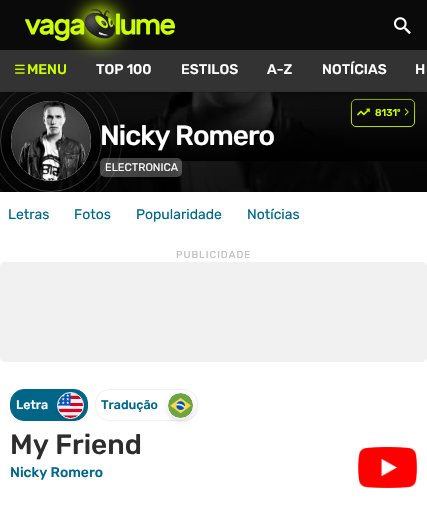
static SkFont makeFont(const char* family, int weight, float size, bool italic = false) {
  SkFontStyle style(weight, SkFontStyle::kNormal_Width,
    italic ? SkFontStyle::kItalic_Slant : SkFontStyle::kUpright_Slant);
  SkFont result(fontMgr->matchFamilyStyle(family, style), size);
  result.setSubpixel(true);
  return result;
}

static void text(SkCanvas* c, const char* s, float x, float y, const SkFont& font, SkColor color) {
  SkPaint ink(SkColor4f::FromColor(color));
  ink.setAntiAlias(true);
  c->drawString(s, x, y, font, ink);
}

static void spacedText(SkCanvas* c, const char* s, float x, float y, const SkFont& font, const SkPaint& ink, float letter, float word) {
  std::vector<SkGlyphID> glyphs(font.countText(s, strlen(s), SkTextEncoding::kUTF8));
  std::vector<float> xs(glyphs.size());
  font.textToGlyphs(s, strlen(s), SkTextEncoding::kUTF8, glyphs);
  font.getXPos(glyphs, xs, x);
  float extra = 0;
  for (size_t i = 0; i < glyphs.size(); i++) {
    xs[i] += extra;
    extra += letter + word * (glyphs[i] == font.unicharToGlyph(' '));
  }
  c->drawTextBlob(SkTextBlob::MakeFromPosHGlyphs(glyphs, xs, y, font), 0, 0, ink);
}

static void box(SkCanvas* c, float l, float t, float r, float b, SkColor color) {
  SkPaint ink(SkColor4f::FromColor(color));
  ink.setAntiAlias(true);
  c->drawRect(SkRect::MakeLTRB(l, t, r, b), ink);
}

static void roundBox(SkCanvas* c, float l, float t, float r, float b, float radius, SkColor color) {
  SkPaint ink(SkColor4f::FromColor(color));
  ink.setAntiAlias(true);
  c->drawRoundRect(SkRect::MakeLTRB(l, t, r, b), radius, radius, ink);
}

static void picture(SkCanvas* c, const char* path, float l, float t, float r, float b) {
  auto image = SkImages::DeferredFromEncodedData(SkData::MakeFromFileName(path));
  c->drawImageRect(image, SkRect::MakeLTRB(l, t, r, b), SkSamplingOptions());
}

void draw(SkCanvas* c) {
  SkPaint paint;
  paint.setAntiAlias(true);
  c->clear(0xffffffff);
  picture(c, "img_04.png", 0, 92, 427, 192);
  picture(c, "img_06.png", 0, 92, 427, 192);
  {
    const SkColor colors[] = {0x40000000, 0xbf000000};
    const float stops[] = {0, 0.6f};
    const SkPoint ends[] = {{214, 92}, {214, 192}};
    paint.setShader(SkGradientShader::MakeLinear(ends, colors, stops, 2, SkTileMode::kClamp));
    paint.setAlpha(255);
  }
  c->drawRect(SkRect::MakeLTRB(0, 92, 427, 192), paint);
  roundBox(c, 100, 158, 182, 177, 5, 0x40ffffff);
  paint.setStyle(SkPaint::kStroke_Style);
  paint.setStrokeWidth(1);
  paint.setShader(nullptr);
  paint.setColor(0x33ffffff);
  c->drawCircle(51, 141, 50.5f, paint);
  SkFont face1 = makeFont("Rubik", 500, 28);
  paint.setStyle(SkPaint::kFill_Style);
  paint.setColor(0xffffffff);
  spacedText(c, "Nicky Romero", 100, 145, face1, paint, -1, 0);
  SkFont face2 = makeFont("Rubik", 400, 11);
  text(c, "ELECTRONICA", 105, 171, face2, 0xffffffff);
  c->save();
  c->clipRect(SkRect::MakeLTRB(0, 92, 427, 192));
  paint.setStyle(SkPaint::kStroke_Style);
  paint.setColor(0x26ffffff);
  c->drawCircle(51, 141, 60.5f, paint);
  paint.setColor(0x1affffff);
  c->drawCircle(51, 141, 70.5f, paint);
  c->restore();
  paint.setStyle(SkPaint::kFill_Style);
  paint.setColor(0xfff1f1f1);
  c->drawCircle(51, 141, 40, paint);
  picture(c, "img_05.png", 11, 101, 91, 181);
  paint.setStyle(SkPaint::kStroke_Style);
  paint.setStrokeWidth(0.9f);
  paint.setColor(0xffccff00);
  c->drawRoundRect(SkRect::MakeLTRB(351.45f, 99.45f, 414.55f, 126.55f), 4.55f, 4.55f, paint);
  picture(c, "img_07.png", 357, 108, 370, 116);
  picture(c, "img_08.png", 404, 108, 409, 116);
  paint.setStyle(SkPaint::kFill_Style);
  paint.setColor(0xff000000);
  paint.setMaskFilter(SkMaskFilter::MakeBlur(kNormal_SkBlurStyle, 15));
  c->drawRect(SkRect::MakeLTRB(0, -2, 427, 90), paint);
  paint.setMaskFilter(nullptr);
  box(c, 0, 0, 427, 50, 0xff0a0a0a);
  box(c, 0, 90, 427, 92, 0xff313131);
  box(c, 0, 50, 427, 90, 0xff333333);
  paint.setColor(0xffccff00);
  paint.setMaskFilter(SkMaskFilter::MakeBlur(kNormal_SkBlurStyle, 9));
  c->drawRoundRect(SkRect::MakeLTRB(82, 7, 118, 43), 18, 18, paint);
  paint.setMaskFilter(nullptr);
  picture(c, "img_01.png", 25, 9, 175, 41);
  picture(c, "img_02.png", 393, 17, 411, 34);
  picture(c, "img_03.png", 15, 64, 25, 74);
  SkFont face3 = makeFont("Rubik", 500, 14);
  text(c, "MENU", 27, 74, face3, 0xffccff00);
  text(c, "TOP 100", 96, 74, face3, 0xffffffff);
  text(c, "ESTILOS", 181, 74, face3, 0xffffffff);
  text(c, "A-Z", 267, 74, face3, 0xffffffff);
  text(c, "NOTÍCIAS", 322, 74, face3, 0xffffffff);
  text(c, "H", 415, 74, face3, 0xffffffff);
  SkFont face4 = makeFont("Rubik", 500, 10);
  text(c, "8131º", 375, 116, face4, 0xffccff00);
  SkFont face5 = makeFont("Rubik", 400, 14);
  text(c, "Letras", 8, 219, face5, 0xff006688);
  text(c, "Fotos", 74, 219, face5, 0xff006688);
  text(c, "Popularidade", 136, 219, face5, 0xff006688);
  text(c, "Notícias", 247, 219, face5, 0xff006688);
  roundBox(c, 0, 262, 427, 362, 5, 0xfff1f1f1);
  SkFont face6 = makeFont("Rubik", 400, 10);
  paint.setColor(0xffbbbbbb);
  spacedText(c, "PUBLICIDADE", 176, 258, face6, paint, 1, 0);
  paint.setColor(0xff006688);
  c->drawRoundRect(SkRect::MakeLTRB(10.5f, 389.5f, 87.5f, 420.5f), 13.5f, 13.5f, paint);
  paint.setStyle(SkPaint::kStroke_Style);
  paint.setStrokeWidth(1);
  c->drawRoundRect(SkRect::MakeLTRB(10.5f, 389.5f, 87.5f, 420.5f), 13.5f, 13.5f, paint);
  SkFont face7 = makeFont("Rubik", 500, 12.5f);
  text(c, "Letra", 16, 409, face7, 0xffffffff);
  paint.setStyle(SkPaint::kFill_Style);
  paint.setColor(0x1a000000);
  paint.setMaskFilter(SkMaskFilter::MakeBlur(kNormal_SkBlurStyle, 2.5f));
  c->drawRoundRect(SkRect::MakeLTRB(57, 395, 84, 422), 13.5f, 13.5f, paint);
  paint.setMaskFilter(nullptr);
  picture(c, "img_09.png", 58, 393, 83, 418);
  paint.setStyle(SkPaint::kStroke_Style);
  paint.setColor(0xffffffff);
  c->drawCircle(70.5f, 405.5f, 13, paint);
  paint.setColor(0xfff1f1f1);
  c->drawRoundRect(SkRect::MakeLTRB(95.5f, 389.5f, 197.5f, 420.5f), 13.5f, 13.5f, paint);
  text(c, "Tradução", 101, 409, face7, 0xff006688);
  paint.setStyle(SkPaint::kFill_Style);
  paint.setColor(0x1a000000);
  paint.setMaskFilter(SkMaskFilter::MakeBlur(kNormal_SkBlurStyle, 2.5f));
  c->drawRoundRect(SkRect::MakeLTRB(167, 395, 194, 422), 13.5f, 13.5f, paint);
  paint.setMaskFilter(nullptr);
  picture(c, "img_10.png", 168, 393, 193, 418);
  paint.setStyle(SkPaint::kStroke_Style);
  paint.setColor(0xffffffff);
  c->drawCircle(180.5f, 405.5f, 13, paint);
  text(c, "My Friend", 10, 454, face1, 0xff2d2d2d);
  text(c, "Nicky Romero", 10, 477, face3, 0xff006688);
  picture(c, "img_11.png", 358, 447, 417, 488);
}
